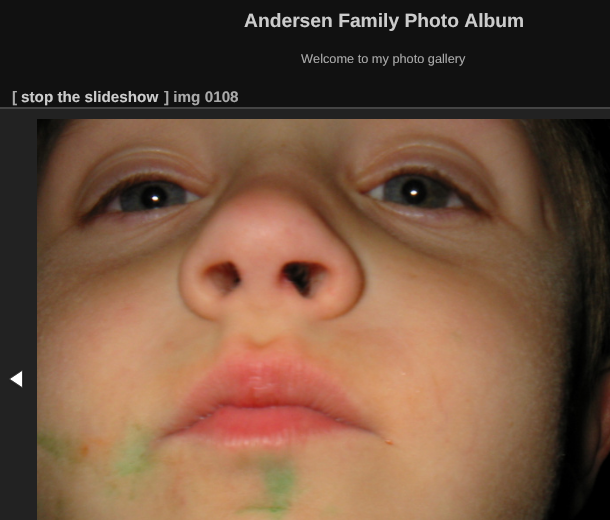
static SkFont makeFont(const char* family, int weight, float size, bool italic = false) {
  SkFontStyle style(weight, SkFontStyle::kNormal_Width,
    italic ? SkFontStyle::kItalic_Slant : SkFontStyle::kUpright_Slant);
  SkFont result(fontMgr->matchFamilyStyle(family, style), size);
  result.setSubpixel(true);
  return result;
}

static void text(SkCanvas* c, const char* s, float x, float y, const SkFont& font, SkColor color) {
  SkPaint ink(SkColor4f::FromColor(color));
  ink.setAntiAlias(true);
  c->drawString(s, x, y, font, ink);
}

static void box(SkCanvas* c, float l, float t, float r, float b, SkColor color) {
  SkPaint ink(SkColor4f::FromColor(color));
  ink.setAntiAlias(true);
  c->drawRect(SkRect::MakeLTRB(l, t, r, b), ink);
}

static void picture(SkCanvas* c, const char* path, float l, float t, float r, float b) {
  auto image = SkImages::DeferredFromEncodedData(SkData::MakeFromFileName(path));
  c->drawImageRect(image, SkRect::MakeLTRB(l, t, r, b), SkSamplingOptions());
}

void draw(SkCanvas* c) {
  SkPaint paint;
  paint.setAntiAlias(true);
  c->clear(0xff111111);
  SkFont face1 = makeFont("Liberation Sans", 700, 19.25f);
  text(c, "Andersen Family Photo Album", 244, 27, face1, 0xffcccccc);
  SkFont face2 = makeFont("Liberation Sans", 400, 12.75f);
  text(c, "Welcome to my photo gallery", 301, 63, face2, 0xffaaaaaa);
  box(c, 0, 107, 610, 109, 0xff444444);
  SkFont face3 = makeFont("Liberation Sans", 700, 15.25f);
  text(c, "[", 12, 102, face3, 0xffaaaaaa);
  text(c, "stop the slideshow", 21, 102, face3, 0xffcccccc);
  text(c, "] img 0108", 164, 102, face3, 0xffaaaaaa);
  box(c, 0, 109, 610, 520, 0xff222222);
  picture(c, "img_01.png", 9, 370, 24, 388);
  picture(c, "img_02.png", 37, 119, 610, 520);
}
